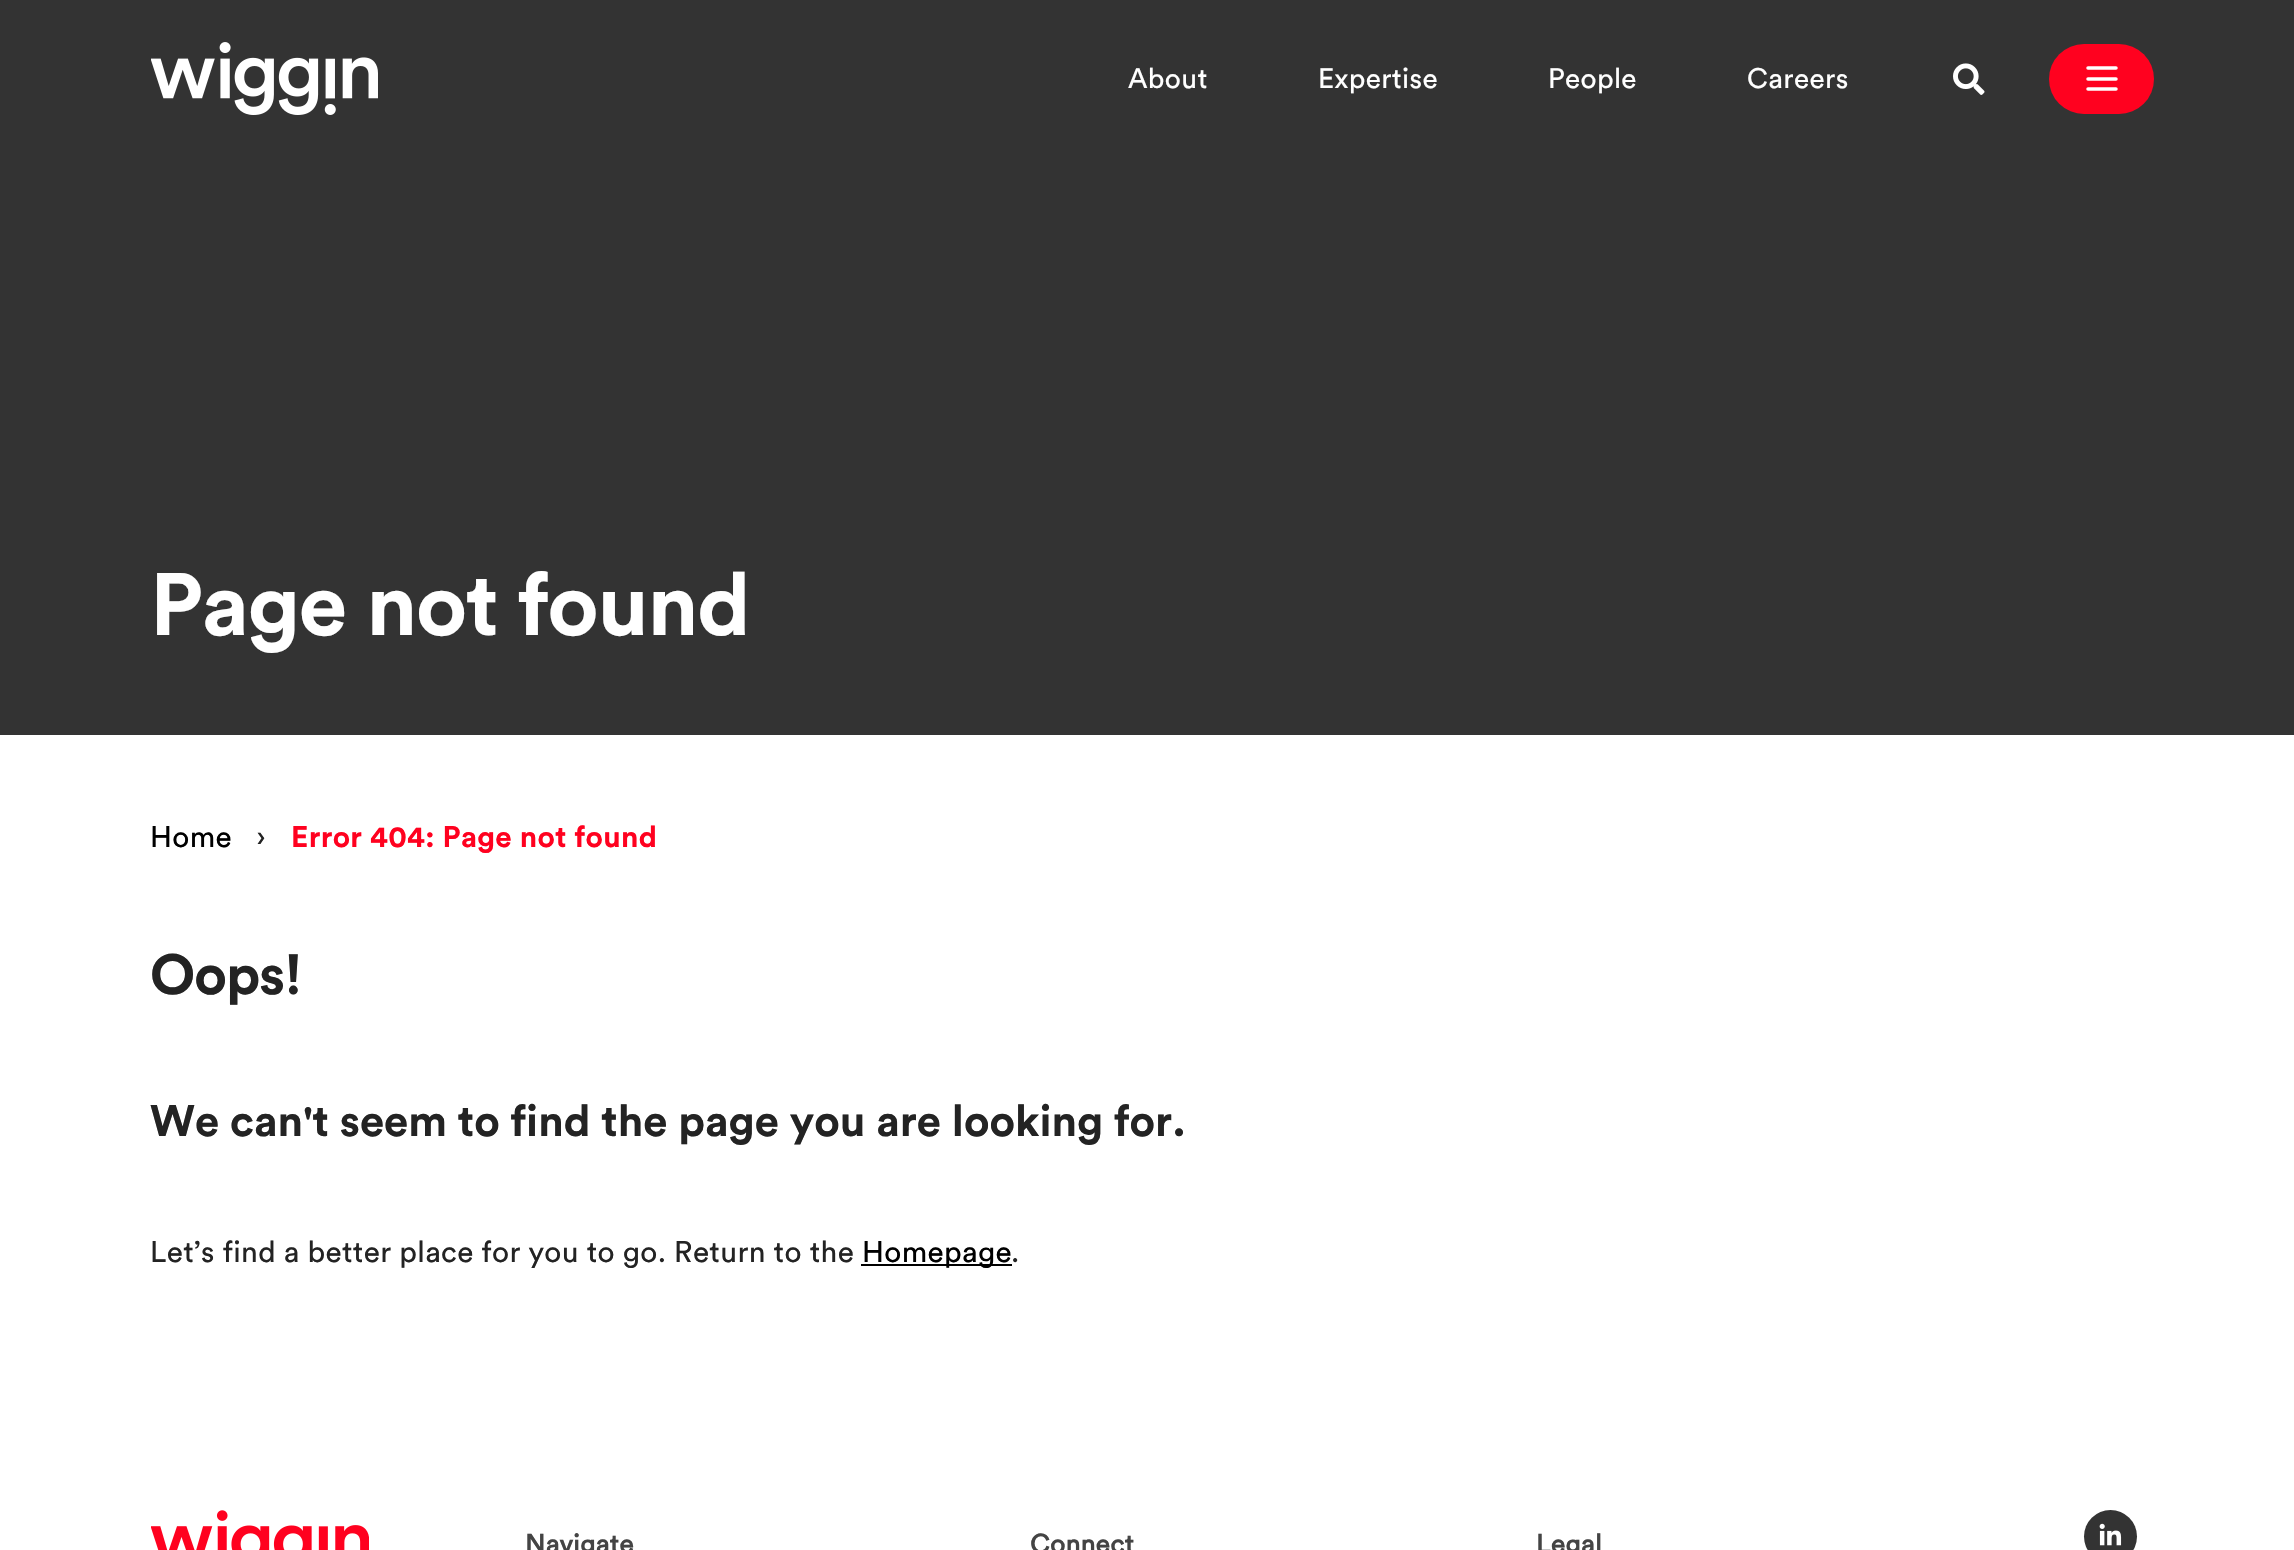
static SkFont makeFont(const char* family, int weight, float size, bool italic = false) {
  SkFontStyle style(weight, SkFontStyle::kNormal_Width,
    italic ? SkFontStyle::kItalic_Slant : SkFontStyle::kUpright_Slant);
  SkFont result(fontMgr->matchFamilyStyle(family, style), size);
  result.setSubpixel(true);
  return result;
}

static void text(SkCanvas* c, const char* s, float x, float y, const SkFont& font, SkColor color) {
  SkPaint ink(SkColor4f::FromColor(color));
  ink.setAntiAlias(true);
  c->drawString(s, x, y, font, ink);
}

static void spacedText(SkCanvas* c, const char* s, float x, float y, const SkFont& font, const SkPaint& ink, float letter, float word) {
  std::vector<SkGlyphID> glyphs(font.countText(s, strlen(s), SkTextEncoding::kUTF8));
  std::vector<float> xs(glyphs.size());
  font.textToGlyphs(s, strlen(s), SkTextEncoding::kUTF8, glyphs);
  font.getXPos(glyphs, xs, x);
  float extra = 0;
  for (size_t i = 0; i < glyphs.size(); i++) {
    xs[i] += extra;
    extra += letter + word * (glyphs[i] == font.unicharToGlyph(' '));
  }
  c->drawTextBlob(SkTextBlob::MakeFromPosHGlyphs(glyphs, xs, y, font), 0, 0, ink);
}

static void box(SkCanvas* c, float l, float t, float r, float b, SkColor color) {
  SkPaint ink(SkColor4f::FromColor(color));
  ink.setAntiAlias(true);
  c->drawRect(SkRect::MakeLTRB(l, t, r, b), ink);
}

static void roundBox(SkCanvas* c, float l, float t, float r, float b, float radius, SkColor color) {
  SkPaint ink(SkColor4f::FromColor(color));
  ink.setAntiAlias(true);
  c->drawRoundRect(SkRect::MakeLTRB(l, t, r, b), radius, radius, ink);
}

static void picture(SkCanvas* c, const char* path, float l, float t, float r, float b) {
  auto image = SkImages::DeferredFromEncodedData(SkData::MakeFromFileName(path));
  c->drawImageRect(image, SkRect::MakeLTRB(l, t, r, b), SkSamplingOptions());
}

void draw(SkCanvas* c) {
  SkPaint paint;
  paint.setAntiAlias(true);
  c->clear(0xffffffff);
  box(c, 0, 0, 2294, 735, 0xff333333);
  picture(c, "img_01.png", 151, 42, 378, 115);
  SkFont face1 = makeFont("Circular", 400, 28);
  paint.setColor(0xffffffff);
  spacedText(c, "About", 1128, 88, face1, paint, 0.35f, 0);
  spacedText(c, "Expertise", 1318, 88, face1, paint, 0.35f, 0);
  spacedText(c, "People", 1548, 88, face1, paint, 0.35f, 0);
  spacedText(c, "Careers", 1747, 88, face1, paint, 0.35f, 0);
  picture(c, "img_02.png", 1953, 63, 1985, 95);
  roundBox(c, 2049, 44, 2154, 114, 35, 0xffff011f);
  paint.setStyle(SkPaint::kStroke_Style);
  paint.setStrokeWidth(3.5f);
  paint.setStrokeCap(SkPaint::kRound_Cap);
  c->drawPath(SkPathBuilder().moveTo(2088, 68).lineTo(2116, 68).moveTo(2088, 79).lineTo(2116, 79).moveTo(2088, 89).lineTo(2116, 89).detach(), paint);
  SkFont face2 = makeFont("Circular", 700, 87.5f);
  paint.setStyle(SkPaint::kFill_Style);
  spacedText(c, "Page not found", 150, 635, face2, paint, -1.25f, 0);
  SkFont face3 = makeFont("Circular", 400, 29.75f);
  paint.setColor(0xff000000);
  spacedText(c, "Home", 150, 847, face3, paint, 0.35f, 0);
  paint.setColor(0xff232323);
  spacedText(c, "›", 257, 847, face3, paint, 0.35f, 0);
  SkFont face4 = makeFont("Circular", 700, 29.75f);
  paint.setColor(0xffff011f);
  spacedText(c, "Error 404: Page not found", 291, 847, face4, paint, 0.35f, 0);
  SkFont face5 = makeFont("Circular", 700, 56);
  paint.setColor(0xff232323);
  spacedText(c, "Oops!", 150, 994, face5, paint, -1, 0);
  SkFont face6 = makeFont("Circular", 700, 43.75f);
  text(c, "We can't seem to find the page you are looking for.", 150, 1136, face6, 0xff232323);
  spacedText(c, "Let’s find a better place for you to go. Return to the", 150, 1262, face3, paint, 0.35f, 0);
  box(c, 861, 1264, 1012, 1266, 0xff000000);
  paint.setColor(0xff000000);
  spacedText(c, "Homepage", 862, 1262, face3, paint, 0.35f, 0);
  paint.setColor(0xff232323);
  spacedText(c, ".", 1011, 1262, face3, paint, 0.35f, 0);
  picture(c, "img_03.png", 151, 1510, 369, 1550);
  SkFont face7 = makeFont("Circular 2", 700, 26.25f);
  paint.setColor(0xff444444);
  spacedText(c, "Navigate", 525, 1553, face7, paint, 0.35f, 0);
  spacedText(c, "Connect", 1030, 1553, face7, paint, 0.35f, 0);
  spacedText(c, "Legal", 1536, 1553, face7, paint, 0.35f, 0);
  paint.setColor(0xff333333);
  c->drawCircle(2110.5f, 1536.5f, 26.5f, paint);
  picture(c, "img_04.png", 2099, 1523, 2122, 1546);
}
